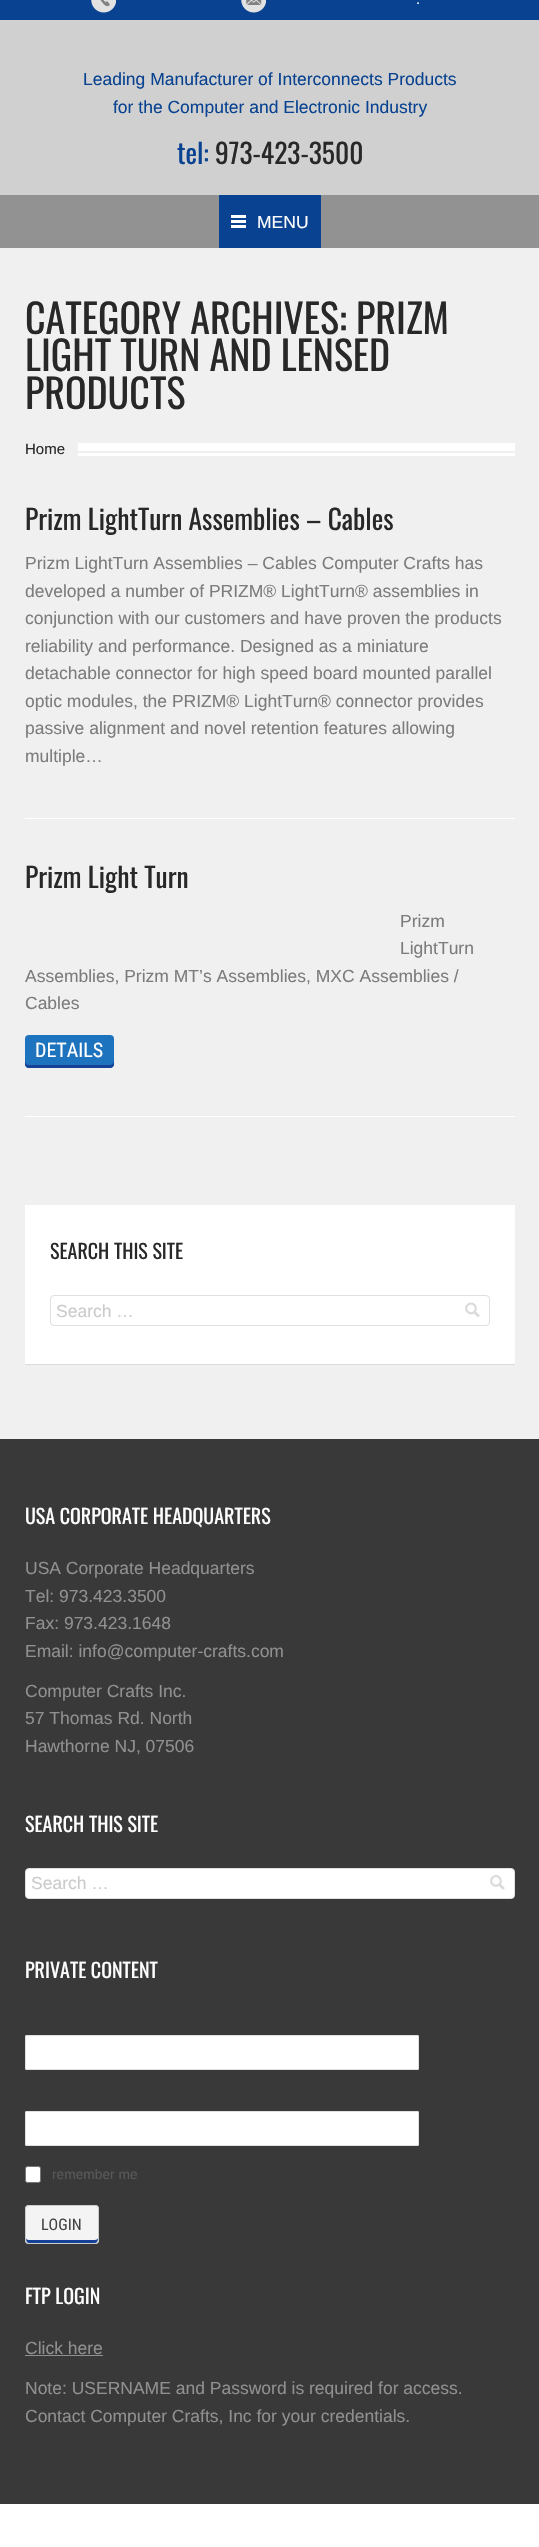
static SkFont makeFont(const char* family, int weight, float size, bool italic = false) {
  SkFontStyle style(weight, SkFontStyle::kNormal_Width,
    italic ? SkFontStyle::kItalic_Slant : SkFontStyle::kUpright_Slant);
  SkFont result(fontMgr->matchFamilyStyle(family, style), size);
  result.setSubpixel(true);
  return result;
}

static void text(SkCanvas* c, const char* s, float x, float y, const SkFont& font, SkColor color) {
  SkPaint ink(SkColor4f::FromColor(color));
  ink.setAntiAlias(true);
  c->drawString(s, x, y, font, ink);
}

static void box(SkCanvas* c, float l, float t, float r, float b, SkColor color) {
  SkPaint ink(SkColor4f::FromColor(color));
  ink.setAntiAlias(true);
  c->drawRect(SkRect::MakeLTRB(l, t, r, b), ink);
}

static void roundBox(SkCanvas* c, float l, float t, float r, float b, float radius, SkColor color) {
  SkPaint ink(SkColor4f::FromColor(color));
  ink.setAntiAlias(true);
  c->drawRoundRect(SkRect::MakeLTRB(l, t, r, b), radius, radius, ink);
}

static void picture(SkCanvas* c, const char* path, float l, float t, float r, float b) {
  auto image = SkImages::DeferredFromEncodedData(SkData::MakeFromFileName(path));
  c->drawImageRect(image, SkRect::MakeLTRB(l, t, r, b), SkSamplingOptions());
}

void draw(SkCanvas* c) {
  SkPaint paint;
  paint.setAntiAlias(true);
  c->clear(0xfff0f0f0);
  box(c, 0, 0, 539, 20, 0xff084290);
  picture(c, "img_01.png", 91, 0, 116, 13);
  picture(c, "img_02.png", 241, 0, 266, 13);
  SkFont face1 = makeFont("Liberation Sans", 400, 15);
  text(c, ".", 416, 4, face1, 0xffffffff);
  box(c, 0, 20, 539, 195, 0xffd0d0d0);
  SkFont face2 = makeFont("Liberation Sans", 400, 17.5f);
  text(c, "Leading Manufacturer of Interconnects Products", 83, 85, face2, 0xff084290);
  text(c, "for the Computer and Electronic Industry", 113, 113, face2, 0xff084290);
  SkFont face3 = makeFont("Oswald", 400, 27.5f);
  text(c, "tel:", 177, 164, face3, 0xff084290);
  text(c, "973-423-3500", 215, 164, face3, 0xff282828);
  box(c, 0, 195, 539, 248, 0xff929292);
  box(c, 219, 195, 321, 248, 0xff084290);
  box(c, 231, 225, 246, 228, 0xffffffff);
  box(c, 231, 220, 246, 223, 0xffffffff);
  box(c, 231, 215, 246, 218, 0xffffffff);
  text(c, "MENU", 257, 228, face2, 0xffffffff);
  SkFont face4 = makeFont("Oswald", 400, 40);
  text(c, "CATEGORY ARCHIVES: PRIZM", 25, 334, face4, 0xff282828);
  text(c, "LIGHT TURN AND LENSED", 25, 371, face4, 0xff282828);
  text(c, "PRODUCTS", 25, 409, face4, 0xff282828);
  text(c, "Home", 25, 454, face1, 0xff282828);
  box(c, 78, 443, 515, 451, 0xffffffff);
  box(c, 78, 453, 515, 456, 0xffffffff);
  box(c, 25, 818, 515, 819, 0xffffffff);
  text(c, "Prizm LightTurn Assemblies – Cables", 25, 530, face3, 0xff282828);
  text(c, "Prizm LightTurn Assemblies – Cables Computer Crafts has", 25, 569, face2, 0xff7c7c7c);
  text(c, "developed a number of PRIZM® LightTurn® assemblies in", 25, 597, face2, 0xff7c7c7c);
  text(c, "conjunction with our customers and have proven the products", 25, 624, face2, 0xff7c7c7c);
  text(c, "reliability and performance. Designed as a miniature", 25, 652, face2, 0xff7c7c7c);
  text(c, "detachable connector for high speed board mounted parallel", 25, 679, face2, 0xff7c7c7c);
  text(c, "optic modules, the PRIZM® LightTurn® connector provides", 25, 707, face2, 0xff7c7c7c);
  text(c, "passive alignment and novel retention features allowing", 25, 734, face2, 0xff7c7c7c);
  text(c, "multiple…", 25, 762, face2, 0xff7c7c7c);
  box(c, 25, 1116, 515, 1117, 0xffffffff);
  text(c, "Prizm Light Turn", 25, 888, face3, 0xff282828);
  text(c, "Prizm", 400, 927, face2, 0xff7c7c7c);
  text(c, "LightTurn", 400, 954, face2, 0xff7c7c7c);
  text(c, "Assemblies, Prizm MT’s Assemblies, MXC Assemblies /", 25, 982, face2, 0xff7c7c7c);
  text(c, "Cables", 25, 1009, face2, 0xff7c7c7c);
  roundBox(c, 25, 1035, 114, 1068, 4, 0xff1e73be);
  paint.setColor(0xff164196);
  c->drawPath(SkPathBuilder().moveTo(25, 1061).lineTo(25, 1064).cubicTo(25, 1066, 27, 1068, 29, 1068).lineTo(110, 1068).cubicTo(112, 1068, 114, 1066, 114, 1064).lineTo(114, 1061).cubicTo(114, 1063, 112, 1065, 110, 1065).lineTo(29, 1065).cubicTo(27, 1065, 25, 1063, 25, 1061).close().detach(), paint);
  SkFont face5 = makeFont("Roboto Condensed", 400, 20);
  text(c, "DETAILS", 35, 1057, face5, 0xffffffff);
  box(c, 25, 1364, 515, 1365, 0xffdbdbdb);
  box(c, 25, 1205, 515, 1364, 0xffffffff);
  SkFont face6 = makeFont("Oswald", 400, 20);
  text(c, "SEARCH THIS SITE", 50, 1259, face6, 0xff282828);
  paint.setStyle(SkPaint::kStroke_Style);
  paint.setStrokeWidth(1);
  paint.setColor(0xffe0e0e0);
  c->drawRoundRect(SkRect::MakeLTRB(50.5f, 1295.5f, 489.5f, 1325.5f), 3.5f, 3.5f, paint);
  text(c, "Search …", 56, 1317, face2, 0xffcbcbcb);
  picture(c, "img_03.png", 465, 1302, 480, 1318);
  box(c, 0, 1439, 539, 2504, 0xff393939);
  text(c, "USA CORPORATE HEADQUARTERS", 25, 1524, face6, 0xffffffff);
  text(c, "USA Corporate Headquarters", 25, 1574, face2, 0xff909090);
  text(c, "Tel: 973.423.3500", 25, 1602, face2, 0xff909090);
  text(c, "Fax: 973.423.1648", 25, 1629, face2, 0xff909090);
  text(c, "Email: info@computer-crafts.com", 25, 1657, face2, 0xff909090);
  text(c, "Computer Crafts Inc.", 25, 1697, face2, 0xff909090);
  text(c, "57 Thomas Rd. North", 25, 1724, face2, 0xff909090);
  text(c, "Hawthorne NJ, 07506", 25, 1752, face2, 0xff909090);
  text(c, "SEARCH THIS SITE", 25, 1832, face6, 0xffffffff);
  paint.setStyle(SkPaint::kFill_Style);
  paint.setColor(0xffffffff);
  c->drawRoundRect(SkRect::MakeLTRB(25.5f, 1868.5f, 514.5f, 1898.5f), 3.5f, 3.5f, paint);
  paint.setStyle(SkPaint::kStroke_Style);
  paint.setColor(0xffe0e0e0);
  c->drawRoundRect(SkRect::MakeLTRB(25.5f, 1868.5f, 514.5f, 1898.5f), 3.5f, 3.5f, paint);
  text(c, "Search …", 31, 1889, face2, 0xffcbcbcb);
  picture(c, "img_04.png", 490, 1875, 505, 1890);
  text(c, "PRIVATE CONTENT", 25, 1978, face6, 0xffffffff);
  paint.setStyle(SkPaint::kFill_Style);
  paint.setColor(0xffffffff);
  c->drawRoundRect(SkRect::MakeLTRB(25.5f, 2035.5f, 418.5f, 2069.5f), 0.5f, 0.5f, paint);
  paint.setStyle(SkPaint::kStroke_Style);
  paint.setColor(0xffe0e0e0);
  c->drawRoundRect(SkRect::MakeLTRB(25.5f, 2035.5f, 418.5f, 2069.5f), 0.5f, 0.5f, paint);
  paint.setStyle(SkPaint::kFill_Style);
  paint.setColor(0xffffffff);
  c->drawRoundRect(SkRect::MakeLTRB(25.5f, 2111.5f, 418.5f, 2145.5f), 0.5f, 0.5f, paint);
  paint.setStyle(SkPaint::kStroke_Style);
  paint.setColor(0xffe0e0e0);
  c->drawRoundRect(SkRect::MakeLTRB(25.5f, 2111.5f, 418.5f, 2145.5f), 0.5f, 0.5f, paint);
  paint.setStyle(SkPaint::kFill_Style);
  paint.setColor(0xffffffff);
  c->drawRoundRect(SkRect::MakeLTRB(25.5f, 2166.5f, 40.5f, 2182.5f), 2, 2, paint);
  paint.setStyle(SkPaint::kStroke_Style);
  paint.setColor(0xff767676);
  c->drawRoundRect(SkRect::MakeLTRB(25.5f, 2166.5f, 40.5f, 2182.5f), 2, 2, paint);
  SkFont face7 = makeFont("Liberation Sans", 400, 13.75f);
  text(c, "remember me", 52, 2179, face7, 0xff595959);
  roundBox(c, 25, 2205, 99, 2244, 4, 0xfff4f4f4);
  paint.setStyle(SkPaint::kFill_Style);
  paint.setColor(0xff164196);
  c->drawPath(SkPathBuilder().moveTo(26, 2238).cubicTo(26, 2246, 31, 2243, 40, 2243).lineTo(84, 2243).cubicTo(93, 2243, 98, 2246, 98, 2238).cubicTo(98, 2239, 96, 2240, 95, 2240).lineTo(29, 2240).cubicTo(27, 2240, 26, 2239, 26, 2238).close().detach(), paint);
  paint.setStyle(SkPaint::kStroke_Style);
  paint.setColor(0xffcccccc);
  c->drawRoundRect(SkRect::MakeLTRB(25.5f, 2205.5f, 98.5f, 2243.5f), 3.5f, 3.5f, paint);
  SkFont face8 = makeFont("Roboto Condensed", 400, 16);
  text(c, "LOGIN", 41, 2230, face8, 0xff444444);
  text(c, "FTP LOGIN", 25, 2304, face6, 0xffffffff);
  text(c, "Click here", 25, 2354, face2, 0xff909090);
  box(c, 25, 2355, 103, 2356, 0xff909090);
  text(c, "Note: USERNAME and Password is required for access.", 25, 2394, face2, 0xff909090);
  text(c, "Contact Computer Crafts, Inc for your credentials.", 25, 2422, face2, 0xff909090);
  box(c, 0, 2504, 539, 2547, 0xffffffff);
}
